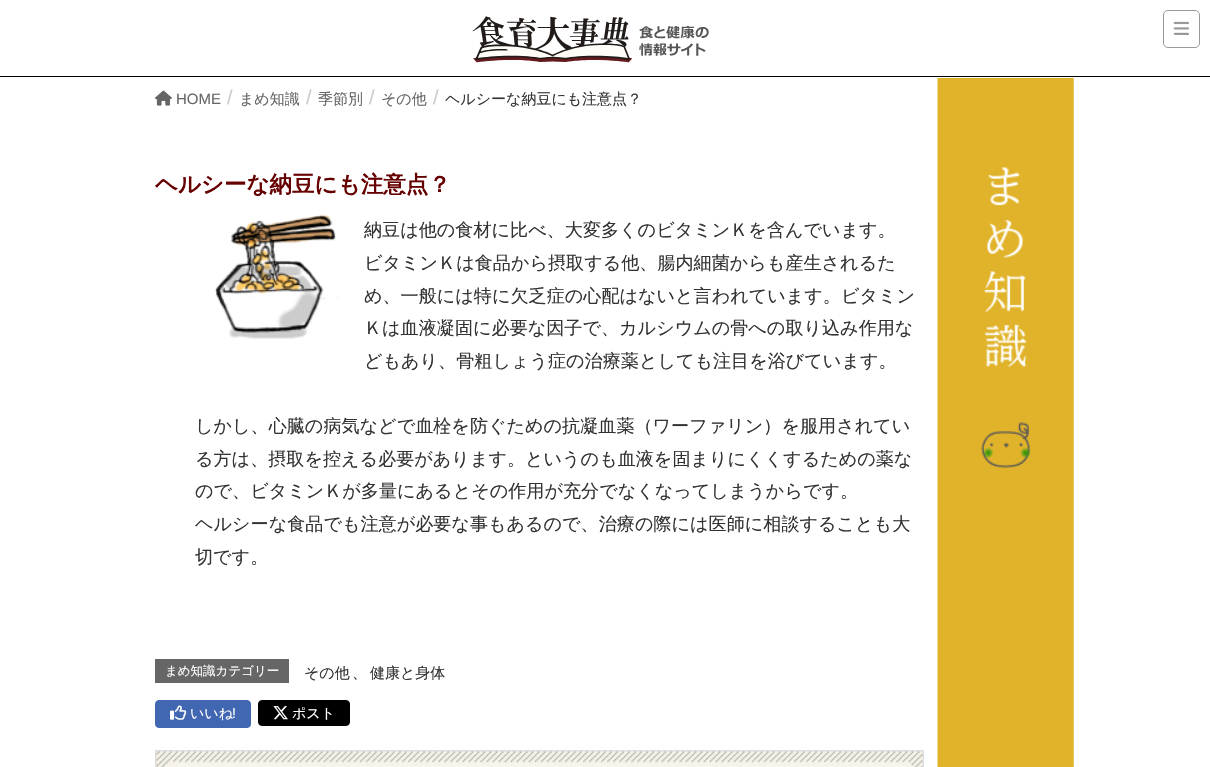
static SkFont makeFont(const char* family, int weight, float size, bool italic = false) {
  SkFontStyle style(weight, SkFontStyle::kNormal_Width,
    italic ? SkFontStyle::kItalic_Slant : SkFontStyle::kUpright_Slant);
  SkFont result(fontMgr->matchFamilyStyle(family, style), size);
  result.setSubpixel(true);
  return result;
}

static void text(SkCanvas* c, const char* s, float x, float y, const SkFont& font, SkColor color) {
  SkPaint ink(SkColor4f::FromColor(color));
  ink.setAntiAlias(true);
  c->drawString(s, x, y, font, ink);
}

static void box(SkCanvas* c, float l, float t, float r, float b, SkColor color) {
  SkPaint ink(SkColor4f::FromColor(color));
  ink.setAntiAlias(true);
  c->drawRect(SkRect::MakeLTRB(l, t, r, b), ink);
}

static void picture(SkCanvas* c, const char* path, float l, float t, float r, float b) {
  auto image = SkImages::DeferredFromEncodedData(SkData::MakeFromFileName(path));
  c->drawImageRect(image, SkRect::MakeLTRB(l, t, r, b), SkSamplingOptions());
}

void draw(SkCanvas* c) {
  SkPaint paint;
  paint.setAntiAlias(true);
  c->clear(0xffffffff);
  paint.setStyle(SkPaint::kStroke_Style);
  paint.setStrokeWidth(1);
  paint.setColor(0xff999999);
  c->drawRoundRect(SkRect::MakeLTRB(1163.5f, 10.5f, 1199.5f, 47.5f), 4.5f, 4.5f, paint);
  picture(c, "img_01.png", 1173, 21, 1189, 35);
  box(c, 0, 76, 1210, 77, 0xff000000);
  picture(c, "img_02.png", 472, 16, 709, 63);
  picture(c, "img_03.png", 937, 78, 1074, 767);
  picture(c, "img_04.png", 155, 90, 172, 106);
  SkFont face1 = makeFont("Liberation Sans", 400, 15);
  text(c, "HOME", 176, 104, face1, 0xff666666);
  SkFont face2 = makeFont("Liberation Sans", 400, 20);
  text(c, "/", 227, 104, face2, 0xffcccccc);
  SkFont face3 = makeFont("WenQuanYi Zen Hei", 500, 15);
  text(c, "まめ知識", 239, 104, face3, 0xff666666);
  text(c, "/", 306, 104, face2, 0xffcccccc);
  text(c, "季節別", 318, 104, face3, 0xff666666);
  text(c, "/", 369, 104, face2, 0xffcccccc);
  text(c, "その他", 381, 104, face3, 0xff666666);
  text(c, "/", 433, 104, face2, 0xffcccccc);
  text(c, "ヘルシーな納豆にも注意点？", 445, 104, face3, 0xff333333);
  SkFont face4 = makeFont("WenQuanYi Zen Hei", 700, 22.5f);
  text(c, "ヘルシーな納豆にも注意点？", 155, 192, face4, 0xff660000);
  picture(c, "img_05.png", 215, 214, 339, 339);
  SkFont face5 = makeFont("WenQuanYi Zen Hei", 500, 18.1f);
  text(c, "納豆は他の食材に比べ、大変多くのビタミンＫを含んでいます。", 364, 236, face5, 0xff333333);
  text(c, "ビタミンＫは食品から摂取する他、腸内細菌からも産生されるた", 364, 269, face5, 0xff333333);
  text(c, "め、一般には特に欠乏症の心配はないと言われています。ビタミン", 364, 302, face5, 0xff333333);
  text(c, "Ｋは血液凝固に必要な因子で、カルシウムの骨への取り込み作用な", 364, 334, face5, 0xff333333);
  text(c, "どもあり、骨粗しょう症の治療薬としても注目を浴びています。", 364, 367, face5, 0xff333333);
  text(c, "しかし、心臓の病気などで血栓を防ぐための抗凝血薬（ワーファリン）を服用されてい", 195, 432, face5, 0xff333333);
  text(c, "る方は、摂取を控える必要があります。というのも血液を固まりにくくするための薬な", 195, 465, face5, 0xff333333);
  text(c, "ので、ビタミンＫが多量にあるとその作用が充分でなくなってしまうからです。", 195, 497, face5, 0xff333333);
  text(c, "ヘルシーな食品でも注意が必要な事もあるので、治療の際には医師に相談することも大", 195, 530, face5, 0xff333333);
  text(c, "切です。", 195, 563, face5, 0xff333333);
  box(c, 155, 659, 289, 683, 0xff666666);
  SkFont face6 = makeFont("WenQuanYi Zen Hei", 500, 12.5f);
  text(c, "まめ知識カテゴリー", 165, 675, face6, 0xffffffff);
  text(c, "その他", 304, 678, face3, 0xff333333);
  text(c, "、", 352, 678, face3, 0xff333333);
  text(c, "健康と身体", 370, 678, face3, 0xff333333);
  paint.setStyle(SkPaint::kFill_Style);
  paint.setColor(0xff4267b2);
  c->drawRoundRect(SkRect::MakeLTRB(155.5f, 700.5f, 250.5f, 727.5f), 3.5f, 3.5f, paint);
  paint.setStyle(SkPaint::kStroke_Style);
  c->drawRoundRect(SkRect::MakeLTRB(155.5f, 700.5f, 250.5f, 727.5f), 3.5f, 3.5f, paint);
  picture(c, "img_06.png", 170, 705, 187, 720);
  SkFont face7 = makeFont("WenQuanYi Zen Hei", 500, 14);
  text(c, "いいね", 190, 718, face7, 0xffffffff);
  SkFont face8 = makeFont("Liberation Sans", 400, 14);
  text(c, "!", 232, 718, face8, 0xffffffff);
  paint.setStyle(SkPaint::kFill_Style);
  paint.setColor(0xff000000);
  c->drawRoundRect(SkRect::MakeLTRB(258.5f, 700.5f, 349.5f, 725.5f), 3.5f, 3.5f, paint);
  paint.setStyle(SkPaint::kStroke_Style);
  c->drawRoundRect(SkRect::MakeLTRB(258.5f, 700.5f, 349.5f, 725.5f), 3.5f, 3.5f, paint);
  picture(c, "img_07.png", 273, 706, 288, 720);
  text(c, "ポスト", 292, 718, face7, 0xffffffff);
  picture(c, "img_08.png", 155, 750, 924, 767);
}
